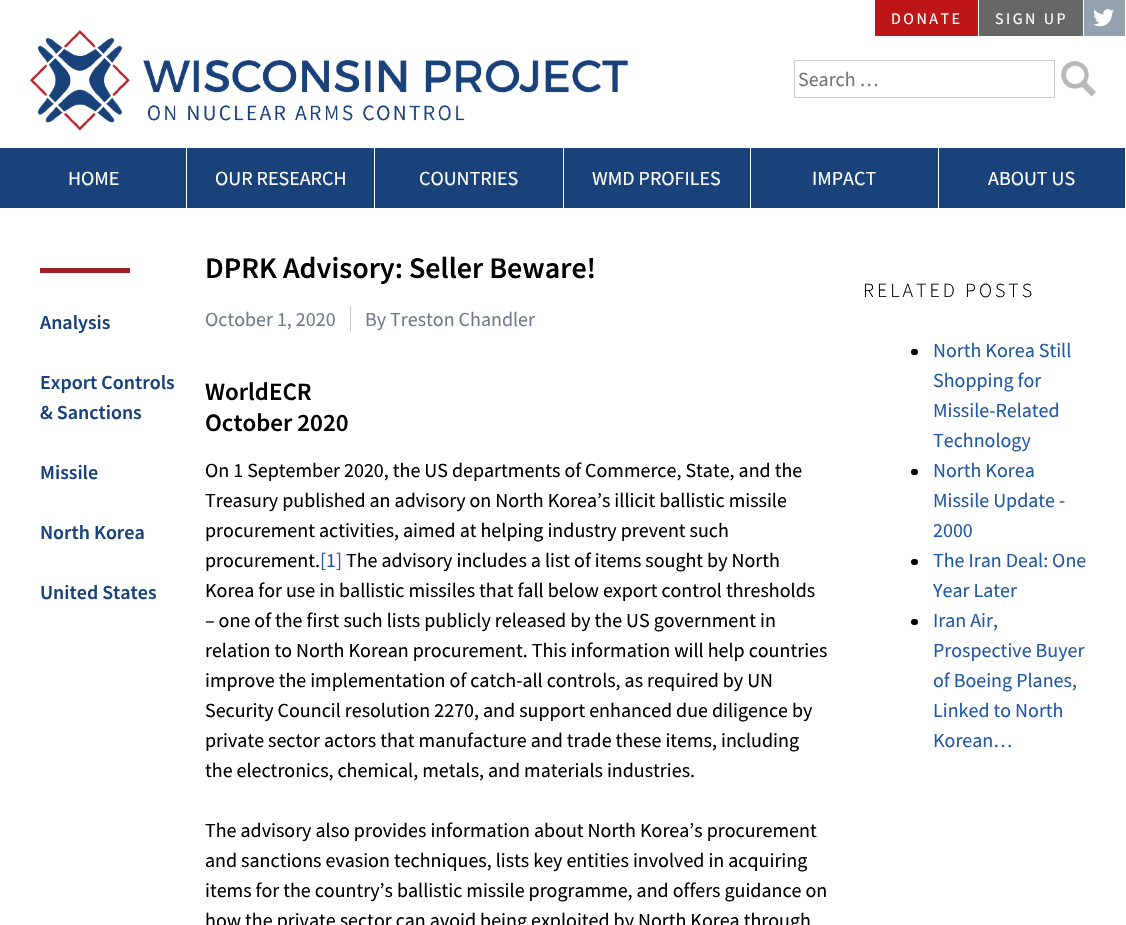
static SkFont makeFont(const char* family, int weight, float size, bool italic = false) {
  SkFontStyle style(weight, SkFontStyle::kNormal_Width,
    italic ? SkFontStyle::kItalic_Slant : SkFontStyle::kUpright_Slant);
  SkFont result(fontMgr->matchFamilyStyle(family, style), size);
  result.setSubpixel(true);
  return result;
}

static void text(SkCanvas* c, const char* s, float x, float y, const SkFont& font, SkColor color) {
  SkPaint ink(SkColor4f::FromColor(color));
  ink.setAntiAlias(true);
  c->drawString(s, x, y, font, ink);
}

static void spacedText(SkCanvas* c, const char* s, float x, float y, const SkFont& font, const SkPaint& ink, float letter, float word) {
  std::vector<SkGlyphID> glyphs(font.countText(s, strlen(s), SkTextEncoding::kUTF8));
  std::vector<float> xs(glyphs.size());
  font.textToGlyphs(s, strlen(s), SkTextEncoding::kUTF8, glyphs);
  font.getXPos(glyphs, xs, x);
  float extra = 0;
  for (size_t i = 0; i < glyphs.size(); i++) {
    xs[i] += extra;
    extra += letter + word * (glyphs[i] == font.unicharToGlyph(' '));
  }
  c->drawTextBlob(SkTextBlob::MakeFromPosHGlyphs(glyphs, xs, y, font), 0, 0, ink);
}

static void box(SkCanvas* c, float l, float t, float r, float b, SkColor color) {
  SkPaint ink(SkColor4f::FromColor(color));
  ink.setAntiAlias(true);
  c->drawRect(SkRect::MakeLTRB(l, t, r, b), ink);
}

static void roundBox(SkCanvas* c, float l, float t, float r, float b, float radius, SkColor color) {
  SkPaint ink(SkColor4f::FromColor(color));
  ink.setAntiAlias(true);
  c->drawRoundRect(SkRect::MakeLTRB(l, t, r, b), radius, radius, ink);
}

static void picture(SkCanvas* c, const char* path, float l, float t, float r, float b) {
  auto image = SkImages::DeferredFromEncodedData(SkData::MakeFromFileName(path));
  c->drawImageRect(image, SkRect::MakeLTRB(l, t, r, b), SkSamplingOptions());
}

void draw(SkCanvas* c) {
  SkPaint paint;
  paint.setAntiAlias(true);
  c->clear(0xffffffff);
  box(c, 875, 0, 978, 36, 0xffbe1616);
  SkFont face1 = makeFont("Source Sans Pro", 400, 16);
  paint.setColor(0xffffffff);
  spacedText(c, "DONATE", 891, 24, face1, paint, 2.5f, 0);
  box(c, 979, 0, 1083, 36, 0xff666868);
  spacedText(c, "SIGN UP", 995, 24, face1, paint, 2.5f, 0);
  box(c, 1084, 0, 1125, 36, 0xff94a2b0);
  picture(c, "img_01.png", 1093, 9, 1114, 27);
  picture(c, "img_02.png", 30, 30, 629, 130);
  paint.setStyle(SkPaint::kStroke_Style);
  paint.setStrokeWidth(1);
  paint.setColor(0xffcccccc);
  c->drawRect(SkRect::MakeLTRB(794.5f, 60.5f, 1054.5f, 97.5f), paint);
  SkFont face2 = makeFont("Source Sans Pro", 400, 20);
  text(c, "Search …", 798, 86, face2, 0xff757575);
  picture(c, "img_03.png", 1061, 61, 1096, 97);
  box(c, 0, 148, 1125, 208, 0xff19417a);
  box(c, 186, 148, 187, 208, 0xffffffff);
  text(c, "HOME", 68, 185, face2, 0xffffffff);
  box(c, 374, 148, 375, 208, 0xffffffff);
  text(c, "OUR RESEARCH", 215, 185, face2, 0xffffffff);
  box(c, 563, 148, 564, 208, 0xffffffff);
  text(c, "COUNTRIES", 419, 185, face2, 0xffffffff);
  box(c, 750, 148, 751, 208, 0xffffffff);
  text(c, "WMD PROFILES", 592, 185, face2, 0xffffffff);
  box(c, 938, 148, 939, 208, 0xffffffff);
  text(c, "IMPACT", 812, 185, face2, 0xffffffff);
  text(c, "ABOUT US", 988, 185, face2, 0xffffffff);
  box(c, 40, 268, 130, 273, 0xffa02024);
  SkFont face3 = makeFont("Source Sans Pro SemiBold", 600, 20);
  text(c, "Analysis", 40, 329, face3, 0xff19417a);
  text(c, "Export Controls", 40, 389, face3, 0xff19417a);
  text(c, "& Sanctions", 40, 419, face3, 0xff19417a);
  text(c, "Missile", 40, 479, face3, 0xff19417a);
  text(c, "North Korea", 40, 539, face3, 0xff19417a);
  text(c, "United States", 40, 599, face3, 0xff19417a);
  SkFont face4 = makeFont("Source Sans Pro SemiBold", 600, 30);
  text(c, "DPRK Advisory: Seller Beware!", 205, 278, face4, 0xff000000);
  text(c, "October 1, 2020", 205, 326, face2, 0xff6f7c88);
  text(c, "By Treston Chandler", 365, 326, face2, 0xff6f7c88);
  box(c, 350, 306, 351, 331, 0xffc6cbd0);
  SkFont face5 = makeFont("Source Sans Pro SemiBold", 600, 25);
  text(c, "WorldECR", 205, 400, face5, 0xff000000);
  text(c, "October 2020", 205, 431, face5, 0xff000000);
  text(c, "On 1 September 2020, the US departments of Commerce, State, and the", 205, 477, face2, 0xff000000);
  text(c, "Treasury published an advisory on North Korea’s illicit ballistic missile", 205, 507, face2, 0xff000000);
  text(c, "procurement activities, aimed at helping industry prevent such", 205, 537, face2, 0xff000000);
  text(c, "procurement.", 205, 567, face2, 0xff000000);
  text(c, "[1]", 320, 567, face2, 0xff2258a4);
  text(c, "The advisory includes a list of items sought by North", 346, 567, face2, 0xff000000);
  text(c, "Korea for use in ballistic missiles that fall below export control thresholds", 205, 597, face2, 0xff000000);
  text(c, "– one of the first such lists publicly released by the US government in", 205, 627, face2, 0xff000000);
  text(c, "relation to North Korean procurement. This information will help countries", 205, 657, face2, 0xff000000);
  text(c, "improve the implementation of catch-all controls, as required by UN", 205, 687, face2, 0xff000000);
  text(c, "Security Council resolution 2270, and support enhanced due diligence by", 205, 717, face2, 0xff000000);
  text(c, "private sector actors that manufacture and trade these items, including", 205, 747, face2, 0xff000000);
  text(c, "the electronics, chemical, metals, and materials industries.", 205, 777, face2, 0xff000000);
  text(c, "The advisory also provides information about North Korea’s procurement", 205, 837, face2, 0xff000000);
  text(c, "and sanctions evasion techniques, lists key entities involved in acquiring", 205, 867, face2, 0xff000000);
  text(c, "items for the country’s ballistic missile programme, and offers guidance on", 205, 897, face2, 0xff000000);
  text(c, "how the private sector can avoid being exploited by North Korea through", 205, 927, face2, 0xff000000);
  SkFont face6 = makeFont("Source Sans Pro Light", 300, 20);
  paint.setStyle(SkPaint::kFill_Style);
  paint.setColor(0xff000000);
  spacedText(c, "RELATED POSTS", 863, 297, face6, paint, 3, 0);
  roundBox(c, 911, 349, 918, 355, 3, 0xff000000);
  text(c, "North Korea Still", 933, 357, face2, 0xff2258a4);
  text(c, "Shopping for", 933, 387, face2, 0xff2258a4);
  text(c, "Missile-Related", 933, 417, face2, 0xff2258a4);
  text(c, "Technology", 933, 447, face2, 0xff2258a4);
  roundBox(c, 911, 469, 918, 475, 3, 0xff000000);
  text(c, "North Korea", 933, 477, face2, 0xff2258a4);
  text(c, "Missile Update -", 933, 507, face2, 0xff2258a4);
  text(c, "2000", 933, 537, face2, 0xff2258a4);
  roundBox(c, 911, 559, 918, 565, 3, 0xff000000);
  text(c, "The Iran Deal: One", 933, 567, face2, 0xff2258a4);
  text(c, "Year Later", 933, 597, face2, 0xff2258a4);
  roundBox(c, 911, 619, 918, 625, 3, 0xff000000);
  text(c, "Iran Air,", 933, 627, face2, 0xff2258a4);
  text(c, "Prospective Buyer", 933, 657, face2, 0xff2258a4);
  text(c, "of Boeing Planes,", 933, 687, face2, 0xff2258a4);
  text(c, "Linked to North", 933, 717, face2, 0xff2258a4);
  text(c, "Korean…", 933, 747, face2, 0xff2258a4);
}
